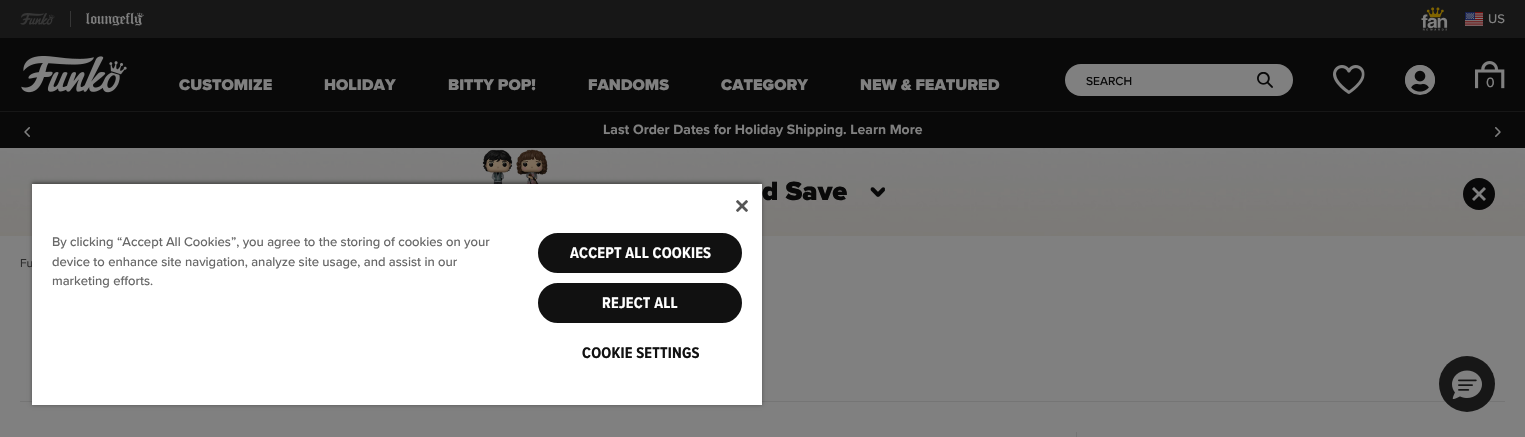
static SkFont makeFont(const char* family, int weight, float size, bool italic = false) {
  SkFontStyle style(weight, SkFontStyle::kNormal_Width,
    italic ? SkFontStyle::kItalic_Slant : SkFontStyle::kUpright_Slant);
  SkFont result(fontMgr->matchFamilyStyle(family, style), size);
  result.setSubpixel(true);
  return result;
}

static void text(SkCanvas* c, const char* s, float x, float y, const SkFont& font, SkColor color) {
  SkPaint ink(SkColor4f::FromColor(color));
  ink.setAntiAlias(true);
  c->drawString(s, x, y, font, ink);
}

static void spacedText(SkCanvas* c, const char* s, float x, float y, const SkFont& font, const SkPaint& ink, float letter, float word) {
  std::vector<SkGlyphID> glyphs(font.countText(s, strlen(s), SkTextEncoding::kUTF8));
  std::vector<float> xs(glyphs.size());
  font.textToGlyphs(s, strlen(s), SkTextEncoding::kUTF8, glyphs);
  font.getXPos(glyphs, xs, x);
  float extra = 0;
  for (size_t i = 0; i < glyphs.size(); i++) {
    xs[i] += extra;
    extra += letter + word * (glyphs[i] == font.unicharToGlyph(' '));
  }
  c->drawTextBlob(SkTextBlob::MakeFromPosHGlyphs(glyphs, xs, y, font), 0, 0, ink);
}

static void box(SkCanvas* c, float l, float t, float r, float b, SkColor color) {
  SkPaint ink(SkColor4f::FromColor(color));
  ink.setAntiAlias(true);
  c->drawRect(SkRect::MakeLTRB(l, t, r, b), ink);
}

static void roundBox(SkCanvas* c, float l, float t, float r, float b, float radius, SkColor color) {
  SkPaint ink(SkColor4f::FromColor(color));
  ink.setAntiAlias(true);
  c->drawRoundRect(SkRect::MakeLTRB(l, t, r, b), radius, radius, ink);
}

static void picture(SkCanvas* c, const char* path, float l, float t, float r, float b) {
  auto image = SkImages::DeferredFromEncodedData(SkData::MakeFromFileName(path));
  c->drawImageRect(image, SkRect::MakeLTRB(l, t, r, b), SkSamplingOptions());
}

void draw(SkCanvas* c) {
  SkPaint paint;
  paint.setAntiAlias(true);
  c->clear(0xff808080);
  box(c, 0, 38, 1525, 148, 0xff090909);
  box(c, 0, 0, 1525, 38, 0xff171717);
  picture(c, "img_01.png", 20, 13, 55, 25);
  box(c, 70, 11, 71, 27, 0xff363636);
  picture(c, "img_02.png", 86, 12, 144, 26);
  picture(c, "img_03.png", 1421, 7, 1448, 31);
  picture(c, "img_04.png", 1465, 12, 1483, 26);
  SkFont face1 = makeFont("Proxima Nova", 500, 13);
  text(c, "US", 1488, 23, face1, 0xff808080);
  picture(c, "img_05.png", 21, 56, 127, 93);
  SkFont face2 = makeFont("Proxima Nova", 900, 16);
  text(c, "CUSTOMIZE", 179, 90, face2, 0xff808080);
  text(c, "HOLIDAY", 324, 90, face2, 0xff808080);
  text(c, "BITTY POP!", 448, 90, face2, 0xff808080);
  text(c, "FANDOMS", 588, 90, face2, 0xff808080);
  text(c, "CATEGORY", 721, 90, face2, 0xff808080);
  text(c, "NEW & FEATURED", 860, 90, face2, 0xff808080);
  roundBox(c, 1065, 64, 1293, 96, 16, 0xff808080);
  SkFont face3 = makeFont("Proxima Nova", 500, 12);
  text(c, "SEARCH", 1086, 85, face3, 0xff090909);
  picture(c, "img_06.png", 1257, 72, 1273, 88);
  picture(c, "img_07.png", 1333, 65, 1365, 94);
  picture(c, "img_08.png", 1405, 65, 1435, 94);
  paint.setStyle(SkPaint::kStroke_Style);
  paint.setStrokeWidth(1);
  paint.setColor(0xff808080);
  c->drawCircle(1420, 80, 14.5f, paint);
  picture(c, "img_09.png", 1475, 61, 1505, 89);
  SkFont face4 = makeFont("Proxima Nova", 500, 14);
  text(c, "0", 1486, 87, face4, 0xff808080);
  box(c, 0, 111, 1525, 112, 0xff171717);
  picture(c, "img_10.png", 24, 127, 30, 137);
  SkFont face5 = makeFont("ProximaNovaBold", 700, 14);
  text(c, "Last Order Dates for Holiday Shipping. Learn More", 603, 134, face5, 0xff808080);
  picture(c, "img_11.png", 1495, 127, 1501, 137);
  picture(c, "img_12.png", 0, 148, 1525, 236);
  picture(c, "img_13.png", 482, 149, 548, 184);
  SkFont face6 = makeFont("Proxima Nova", 900, 27.5f);
  text(c, "d Save", 762, 200, face6, 0xff090909);
  picture(c, "img_14.png", 870, 187, 885, 197);
  paint.setStyle(SkPaint::kFill_Style);
  paint.setColor(0xff090909);
  c->drawCircle(1479, 194, 16, paint);
  paint.setColor(0xff808080);
  c->drawPath(SkPathBuilder().moveTo(1484, 187).lineTo(1486, 189).lineTo(1474, 201).lineTo(1472, 199).close().detach(), paint);
  c->drawPath(SkPathBuilder().moveTo(1472, 189).lineTo(1474, 187).lineTo(1486, 199).lineTo(1484, 201).close().detach(), paint);
  SkFont face7 = makeFont("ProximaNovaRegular", 400, 12);
  text(c, "Fu", 20, 267, face7, 0xff2b2b2b);
  box(c, 20, 401, 1505, 402, 0xff757575);
  box(c, 1076, 432, 1077, 437, 0xff757575);
  paint.setColor(0x59000000);
  paint.setMaskFilter(SkMaskFilter::MakeBlur(kNormal_SkBlurStyle, 2));
  c->drawRect(SkRect::MakeLTRB(32, 182, 762, 405), paint);
  paint.setMaskFilter(nullptr);
  c->save();
  c->clipRect(SkRect::MakeLTRB(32, 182, 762, 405));
  paint.setColor(0x33000000);
  paint.setMaskFilter(SkMaskFilter::MakeBlur(kNormal_SkBlurStyle, 2));
  c->drawRect(SkRect::MakeLTRB(32, 184, 762, 405), paint);
  paint.setMaskFilter(nullptr);
  c->restore();
  box(c, 32, 184, 762, 405, 0xffffffff);
  picture(c, "img_15.png", 736, 200, 748, 212);
  text(c, "By clicking “Accept All Cookies”, you agree to the storing of cookies on your", 52, 246, face1, 0xff696969);
  text(c, "device to enhance site navigation, analyze site usage, and assist in our", 52, 266, face1, 0xff696969);
  text(c, "marketing efforts.", 52, 285, face1, 0xff696969);
  paint.setColor(0xff111111);
  c->drawRoundRect(SkRect::MakeLTRB(539, 234, 741, 272), 19, 19, paint);
  paint.setStyle(SkPaint::kStroke_Style);
  paint.setStrokeWidth(2);
  c->drawRoundRect(SkRect::MakeLTRB(539, 234, 741, 272), 19, 19, paint);
  SkFont face8 = makeFont("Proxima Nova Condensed", 700, 16);
  paint.setStyle(SkPaint::kFill_Style);
  paint.setColor(0xffffffff);
  spacedText(c, "ACCEPT ALL COOKIES", 570, 258, face8, paint, 0.2f, 0);
  paint.setColor(0xff111111);
  c->drawRoundRect(SkRect::MakeLTRB(539, 284, 741, 322), 19, 19, paint);
  paint.setStyle(SkPaint::kStroke_Style);
  c->drawRoundRect(SkRect::MakeLTRB(539, 284, 741, 322), 19, 19, paint);
  paint.setStyle(SkPaint::kFill_Style);
  paint.setColor(0xffffffff);
  spacedText(c, "REJECT ALL", 602, 308, face8, paint, 0.2f, 0);
  paint.setColor(0xff111111);
  spacedText(c, "COOKIE SETTINGS", 582, 358, face8, paint, 0.2f, 0);
  paint.setColor(0xff171717);
  c->drawCircle(1467, 384, 28, paint);
  picture(c, "img_16.png", 1452, 370, 1482, 399);
}
